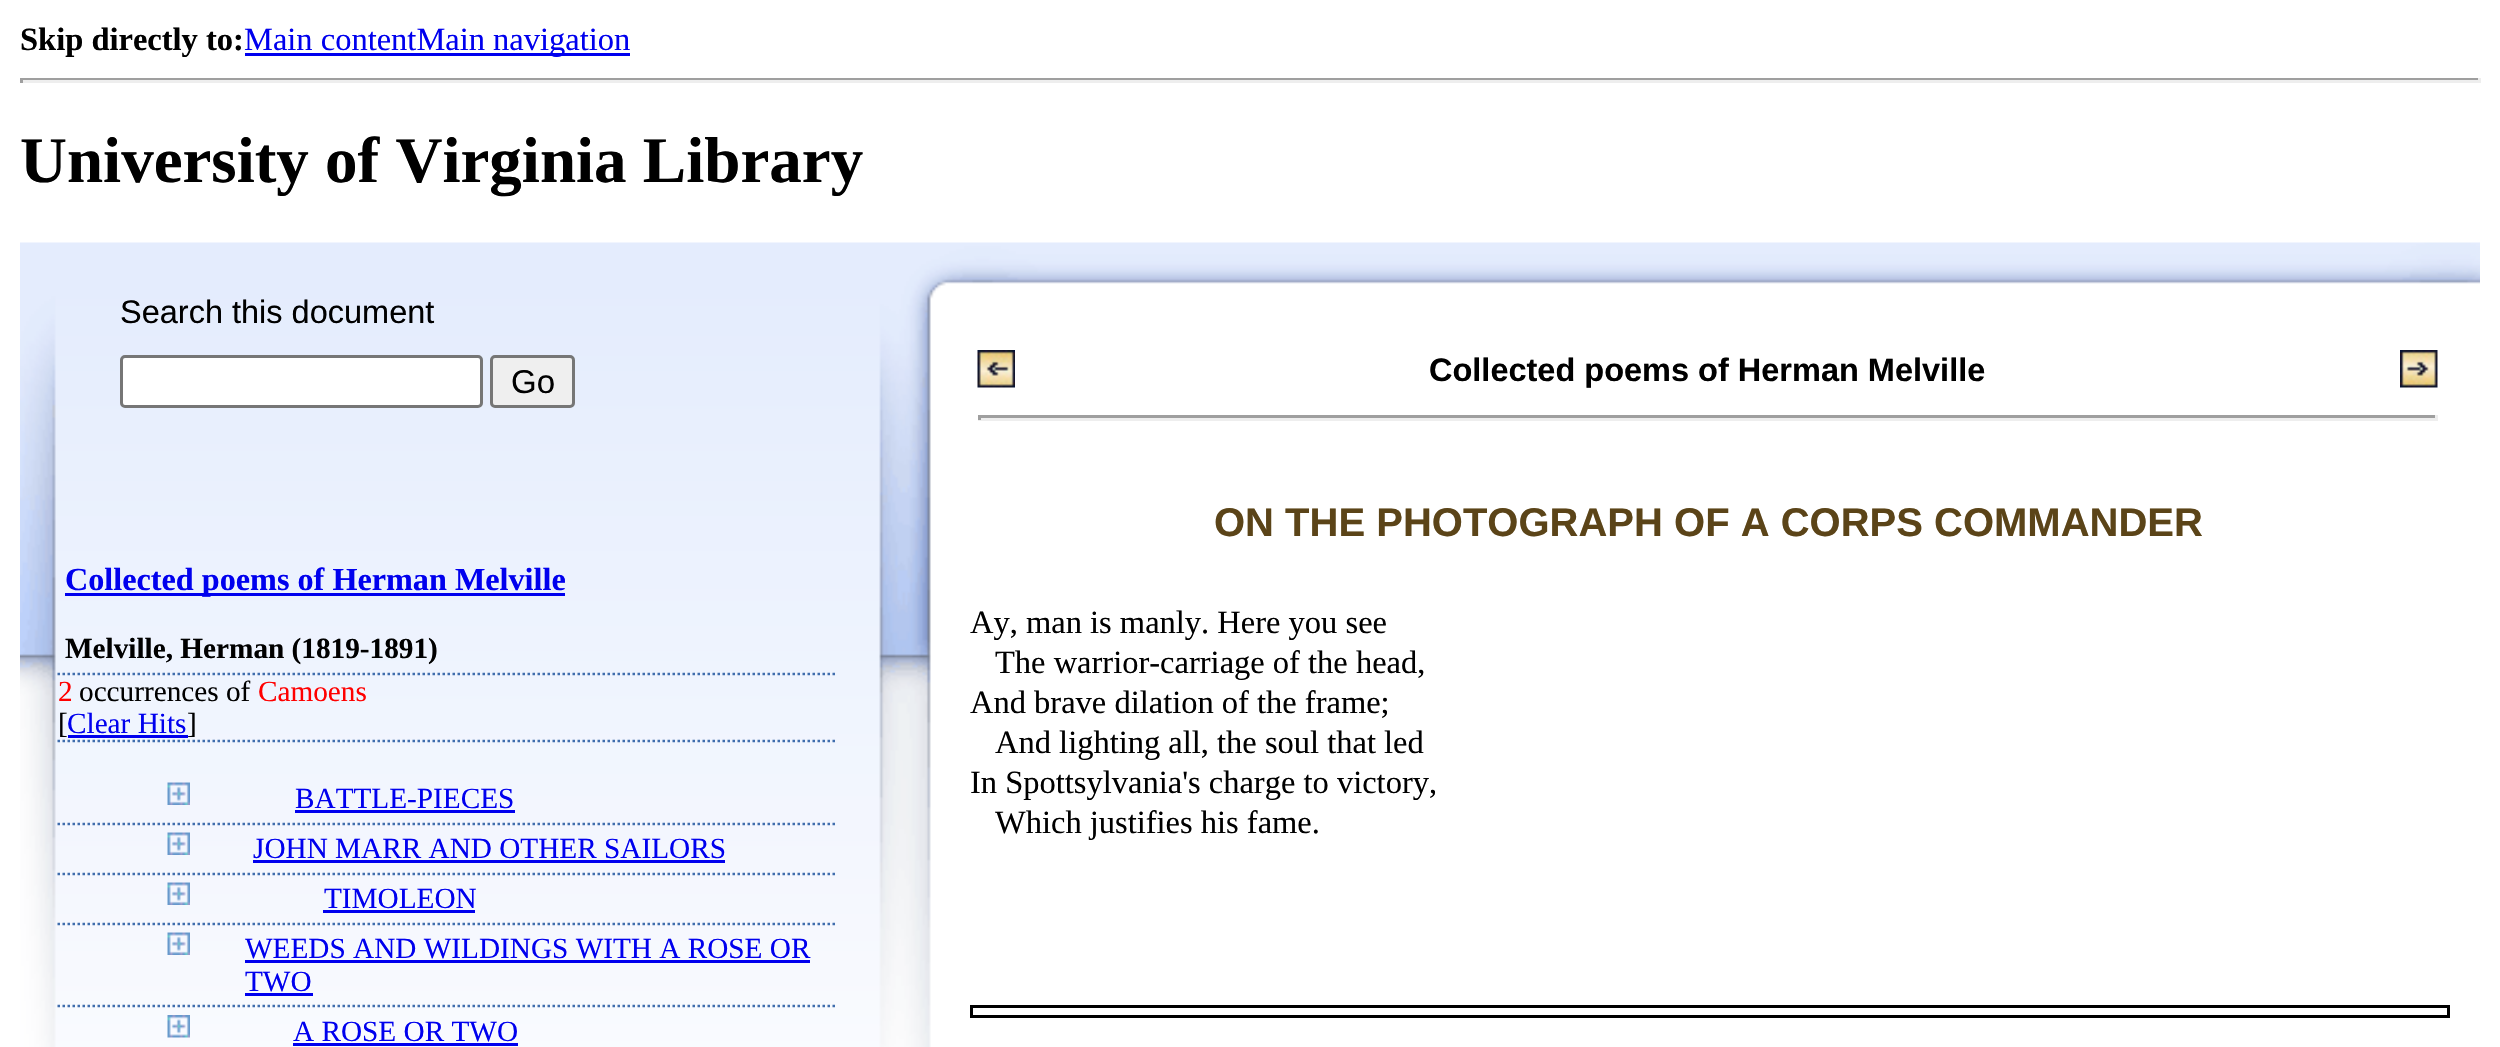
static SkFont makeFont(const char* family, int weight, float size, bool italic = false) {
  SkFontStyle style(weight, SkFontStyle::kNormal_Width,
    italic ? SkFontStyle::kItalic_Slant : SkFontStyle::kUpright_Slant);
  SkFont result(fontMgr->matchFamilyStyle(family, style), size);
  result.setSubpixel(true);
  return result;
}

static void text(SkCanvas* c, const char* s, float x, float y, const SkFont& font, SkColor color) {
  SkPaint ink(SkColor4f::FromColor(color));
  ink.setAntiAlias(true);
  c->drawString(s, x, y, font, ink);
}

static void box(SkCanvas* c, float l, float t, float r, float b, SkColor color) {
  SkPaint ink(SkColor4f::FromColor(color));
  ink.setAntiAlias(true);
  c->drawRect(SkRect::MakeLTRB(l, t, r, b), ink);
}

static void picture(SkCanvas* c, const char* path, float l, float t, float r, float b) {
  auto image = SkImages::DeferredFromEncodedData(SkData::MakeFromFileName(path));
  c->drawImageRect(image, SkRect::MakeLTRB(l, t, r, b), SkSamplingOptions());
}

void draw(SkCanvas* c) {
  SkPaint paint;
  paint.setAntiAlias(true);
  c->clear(0xffffffff);
  SkFont face1 = makeFont("Liberation Serif", 700, 32.5f);
  text(c, "Skip directly to:", 20, 50, face1, 0xff000000);
  box(c, 245, 53, 630, 56, 0xff0000ee);
  SkFont face2 = makeFont("Liberation Serif", 400, 32.5f);
  text(c, "Main contentMain navigation", 244, 50, face2, 0xff0000ee);
  box(c, 20, 78, 2480, 80, 0xff9f9f9f);
  box(c, 2478, 78, 2481, 83, 0xffeeeeee);
  box(c, 20, 80, 2480, 83, 0xffeeeeee);
  box(c, 20, 78, 23, 83, 0xff9f9f9f);
  SkFont face3 = makeFont("Liberation Serif", 700, 65);
  text(c, "University of Virginia Library", 20, 182, face3, 0xff000000);
  picture(c, "img_01.png", 20, 242, 2480, 1047);
  SkFont face4 = makeFont("Liberation Sans", 400, 32.5f);
  text(c, "Search this document", 120, 323, face4, 0xff000000);
  paint.setColor(0xffffffff);
  c->drawRoundRect(SkRect::MakeLTRB(121.5f, 356.5f, 481.5f, 406.5f), 3.5f, 3.5f, paint);
  paint.setStyle(SkPaint::kStroke_Style);
  paint.setStrokeWidth(3);
  paint.setColor(0xff767676);
  c->drawRoundRect(SkRect::MakeLTRB(121.5f, 356.5f, 481.5f, 406.5f), 3.5f, 3.5f, paint);
  paint.setStyle(SkPaint::kFill_Style);
  paint.setColor(0xffefefef);
  c->drawRoundRect(SkRect::MakeLTRB(491.5f, 356.5f, 573.5f, 406.5f), 3.5f, 3.5f, paint);
  paint.setStyle(SkPaint::kStroke_Style);
  paint.setColor(0xff767676);
  c->drawRoundRect(SkRect::MakeLTRB(491.5f, 356.5f, 573.5f, 406.5f), 3.5f, 3.5f, paint);
  SkFont face5 = makeFont("Liberation Sans", 400, 33);
  text(c, "Go", 511, 393, face5, 0xff000000);
  box(c, 65, 593, 565, 596, 0xff0000ee);
  SkFont face6 = makeFont("Liberation Serif", 700, 32.2f);
  text(c, "Collected poems of Herman Melville", 65, 590, face6, 0xff0000ee);
  SkFont face7 = makeFont("Liberation Serif", 700, 29.25f);
  text(c, "Melville, Herman (1819-1891)", 65, 658, face7, 0xff000000);
  paint.setStrokeWidth(2.5f);
  paint.setColor(0xff3f6dad);
  paint.setPathEffect(SkDashPathEffect::Make({{2.5f, 2.5f}}, 0));
  c->drawPath(SkPathBuilder().moveTo(57.5f, 674).lineTo(835, 674).detach(), paint);
  paint.setPathEffect(nullptr);
  paint.setPathEffect(SkDashPathEffect::Make({{2.5f, 2.5f}}, 0));
  c->drawPath(SkPathBuilder().moveTo(57.5f, 741).lineTo(835, 741).detach(), paint);
  paint.setPathEffect(nullptr);
  SkFont face8 = makeFont("Liberation Serif", 400, 29.25f);
  text(c, "2", 58, 701, face8, 0xffff0000);
  text(c, "occurrences of", 79, 701, face8, 0xff000000);
  text(c, "Camoens", 258, 701, face8, 0xffff0000);
  text(c, "[", 58, 733, face8, 0xff000000);
  text(c, "Clear Hits", 67, 733, face8, 0xff0000ee);
  box(c, 68, 735, 188, 738, 0xff0000ee);
  text(c, "]", 187, 733, face8, 0xff000000);
  paint.setPathEffect(SkDashPathEffect::Make({{2.5f, 2.5f}}, 0));
  c->drawPath(SkPathBuilder().moveTo(57.5f, 824).lineTo(835, 824).detach(), paint);
  paint.setPathEffect(nullptr);
  picture(c, "img_02.png", 167, 782, 190, 805);
  text(c, "BATTLE-PIECES", 295, 808, face8, 0xff0000ee);
  box(c, 295, 810, 515, 813, 0xff0000ee);
  paint.setPathEffect(SkDashPathEffect::Make({{2.5f, 2.5f}}, 0));
  c->drawPath(SkPathBuilder().moveTo(57.5f, 874).lineTo(835, 874).detach(), paint);
  paint.setPathEffect(nullptr);
  picture(c, "img_03.png", 167, 832, 190, 855);
  text(c, "JOHN MARR AND OTHER SAILORS", 253, 858, face8, 0xff0000ee);
  box(c, 253, 860, 725, 863, 0xff0000ee);
  paint.setPathEffect(SkDashPathEffect::Make({{2.5f, 2.5f}}, 0));
  c->drawPath(SkPathBuilder().moveTo(57.5f, 924).lineTo(835, 924).detach(), paint);
  paint.setPathEffect(nullptr);
  picture(c, "img_04.png", 167, 882, 190, 905);
  text(c, "TIMOLEON", 324, 908, face8, 0xff0000ee);
  box(c, 323, 910, 475, 913, 0xff0000ee);
  paint.setPathEffect(SkDashPathEffect::Make({{2.5f, 2.5f}}, 0));
  c->drawPath(SkPathBuilder().moveTo(57.5f, 1006).lineTo(835, 1006).detach(), paint);
  paint.setPathEffect(nullptr);
  picture(c, "img_05.png", 167, 932, 190, 955);
  text(c, "WEEDS AND WILDINGS WITH A ROSE OR", 245, 958, face8, 0xff0000ee);
  box(c, 245, 960, 810, 963, 0xff0000ee);
  text(c, "TWO", 245, 991, face8, 0xff0000ee);
  box(c, 245, 993, 313, 996, 0xff0000ee);
  picture(c, "img_06.png", 167, 1015, 190, 1038);
  text(c, "A ROSE OR TWO", 293, 1041, face8, 0xff0000ee);
  box(c, 293, 1043, 518, 1046, 0xff0000ee);
  picture(c, "img_07.png", 977, 350, 1015, 388);
  SkFont face9 = makeFont("Liberation Sans", 700, 32.5f);
  text(c, "Collected poems of Herman Melville", 1429, 381, face9, 0xff000000);
  picture(c, "img_08.png", 2400, 350, 2438, 388);
  box(c, 978, 415, 2438, 418, 0xff9f9f9f);
  box(c, 2435, 415, 2438, 420, 0xffeeeeee);
  box(c, 978, 418, 2438, 421, 0xffeeeeee);
  box(c, 978, 415, 981, 420, 0xff9f9f9f);
  SkFont face10 = makeFont("Liberation Sans", 700, 40);
  text(c, "ON THE PHOTOGRAPH OF A CORPS COMMANDER", 1214, 536, face10, 0xff5b4418);
  text(c, "Ay, man is manly. Here you see", 970, 633, face2, 0xff000000);
  text(c, "The warrior-carriage of the head,", 995, 673, face2, 0xff000000);
  text(c, "And brave dilation of the frame;", 970, 713, face2, 0xff000000);
  text(c, "And lighting all, the soul that led", 995, 753, face2, 0xff000000);
  text(c, "In Spottsylvania's charge to victory,", 970, 793, face2, 0xff000000);
  text(c, "Which justifies his fame.", 995, 833, face2, 0xff000000);
  paint.setStrokeWidth(3);
  paint.setColor(0xff000000);
  c->drawRect(SkRect::MakeLTRB(971.5f, 1006.5f, 2448.5f, 1016.5f), paint);
}
